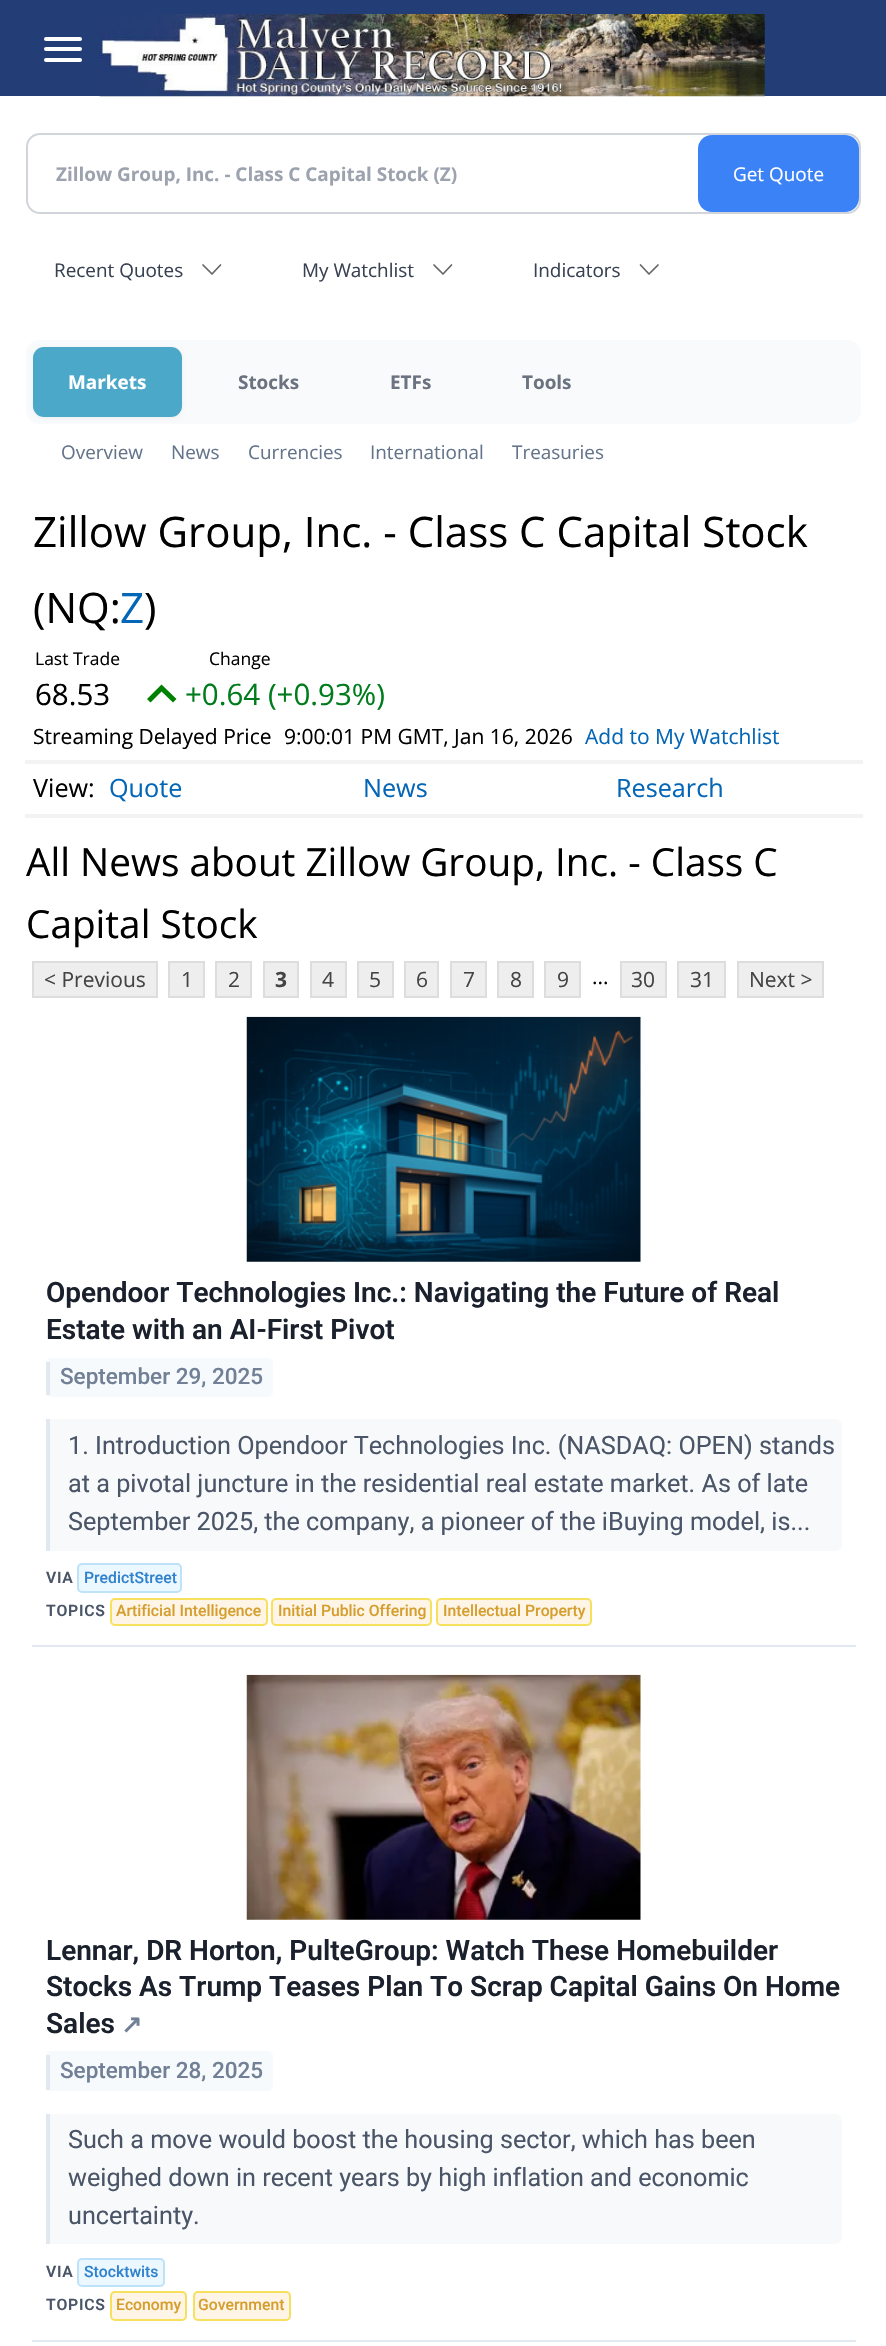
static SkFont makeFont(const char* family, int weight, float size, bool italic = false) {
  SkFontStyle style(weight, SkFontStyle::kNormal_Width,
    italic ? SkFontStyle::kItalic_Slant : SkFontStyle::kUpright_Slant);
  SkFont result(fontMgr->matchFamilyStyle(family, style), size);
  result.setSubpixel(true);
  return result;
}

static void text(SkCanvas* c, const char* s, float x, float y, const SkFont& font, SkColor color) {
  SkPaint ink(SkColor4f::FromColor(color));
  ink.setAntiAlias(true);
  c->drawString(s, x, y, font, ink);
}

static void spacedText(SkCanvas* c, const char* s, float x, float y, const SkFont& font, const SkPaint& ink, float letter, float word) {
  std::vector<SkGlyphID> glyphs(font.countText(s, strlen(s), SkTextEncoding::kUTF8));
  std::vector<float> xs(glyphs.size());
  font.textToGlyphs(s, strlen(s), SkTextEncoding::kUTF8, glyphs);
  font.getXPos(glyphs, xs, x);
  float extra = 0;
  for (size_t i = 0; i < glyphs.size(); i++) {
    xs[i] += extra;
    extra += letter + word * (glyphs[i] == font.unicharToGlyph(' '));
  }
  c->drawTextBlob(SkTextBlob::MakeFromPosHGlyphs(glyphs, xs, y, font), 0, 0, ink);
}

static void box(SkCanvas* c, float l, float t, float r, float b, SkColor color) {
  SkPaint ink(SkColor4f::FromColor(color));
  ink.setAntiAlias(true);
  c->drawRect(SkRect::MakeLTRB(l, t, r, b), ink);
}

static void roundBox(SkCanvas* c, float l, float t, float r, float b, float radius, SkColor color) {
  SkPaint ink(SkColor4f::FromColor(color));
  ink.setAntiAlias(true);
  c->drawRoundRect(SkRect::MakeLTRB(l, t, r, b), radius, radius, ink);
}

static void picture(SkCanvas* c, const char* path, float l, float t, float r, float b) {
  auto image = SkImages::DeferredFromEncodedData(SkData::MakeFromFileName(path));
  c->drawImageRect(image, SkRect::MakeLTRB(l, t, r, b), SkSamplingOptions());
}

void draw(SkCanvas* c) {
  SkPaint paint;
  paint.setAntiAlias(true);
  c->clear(0xffffffff);
  box(c, 0, 0, 886, 96, 0xff233d76);
  roundBox(c, 44, 37, 82, 41, 2, 0xffffffff);
  roundBox(c, 44, 47, 82, 51, 2, 0xffffffff);
  roundBox(c, 44, 58, 82, 62, 2, 0xffffffff);
  picture(c, "img_01.png", 99, 14, 765, 97);
  paint.setStyle(SkPaint::kStroke_Style);
  paint.setStrokeWidth(2);
  paint.setColor(0xffd1d5db);
  c->drawRoundRect(SkRect::MakeLTRB(27, 134, 860, 213), 13, 13, paint);
  SkFont face1 = makeFont("Open Sans", 700, 18.9f);
  text(c, "Zillow Group, Inc. - Class C Capital Stock (Z)", 56, 181, face1, 0xff9ca3af);
  roundBox(c, 698, 135, 859, 212, 14, 0xff3b82f6);
  SkFont face2 = makeFont("Open Sans", 400, 18.9f);
  text(c, "Get Quote", 733, 181, face2, 0xffffffff);
  text(c, "Recent Quotes", 54, 277, face2, 0xff374151);
  paint.setStrokeWidth(1.7f);
  paint.setStrokeCap(SkPaint::kRound_Cap);
  paint.setStrokeJoin(SkPaint::kRound_Join);
  paint.setColor(0xff666666);
  c->drawPath(SkPathBuilder().moveTo(220.5f, 265).lineTo(212, 274).lineTo(203, 265).detach(), paint);
  text(c, "My Watchlist", 302, 277, face2, 0xff374151);
  c->drawPath(SkPathBuilder().moveTo(451.5f, 265).lineTo(443, 274).lineTo(434, 265).detach(), paint);
  text(c, "Indicators", 533, 277, face2, 0xff374151);
  c->drawPath(SkPathBuilder().moveTo(658, 265).lineTo(649, 274).lineTo(640.5f, 265).detach(), paint);
  roundBox(c, 26, 340, 861, 424, 14, 0xfff8fafc);
  paint.setStyle(SkPaint::kFill_Style);
  paint.setColor(0x0d000000);
  paint.setMaskFilter(SkMaskFilter::MakeBlur(kNormal_SkBlurStyle, 2));
  c->drawRoundRect(SkRect::MakeLTRB(33, 348, 182, 418), 11, 11, paint);
  paint.setMaskFilter(nullptr);
  roundBox(c, 33, 347, 182, 417, 11, 0xff4ca8c8);
  text(c, "Markets", 68, 389, face1, 0xffffffff);
  text(c, "Stocks", 238, 389, face1, 0xff6b7280);
  text(c, "ETFs", 390, 389, face1, 0xff6b7280);
  text(c, "Tools", 522, 389, face1, 0xff6b7280);
  text(c, "Overview", 61, 459, face2, 0xff64748b);
  text(c, "News", 171, 459, face2, 0xff64748b);
  text(c, "Currencies", 248, 459, face2, 0xff64748b);
  text(c, "International", 370, 459, face2, 0xff64748b);
  text(c, "Treasuries", 512, 459, face2, 0xff64748b);
  SkFont face3 = makeFont("Open Sans", 400, 42);
  text(c, "Zillow Group, Inc. - Class C Capital Stock", 33, 547, face3, 0xff000000);
  text(c, "(NQ:", 33, 623, face3, 0xff000000);
  text(c, "Z", 120, 623, face3, 0xff0466b6);
  text(c, ")", 144, 623, face3, 0xff000000);
  SkFont face4 = makeFont("Open Sans", 400, 17.5f);
  text(c, "Last Trade", 35, 665, face4, 0xff000000);
  SkFont face5 = makeFont("Open Sans", 400, 29.5f);
  text(c, "68.53", 35, 705, face5, 0xff000000);
  text(c, "Change", 209, 665, face4, 0xff000000);
  text(c, "+0.64 (+0.93%)", 185, 705, face5, 0xff007c1d);
  paint.setColor(0xff008000);
  c->drawPath(SkPathBuilder().moveTo(173, 702.5f).lineTo(176.5f, 699).lineTo(161.5f, 684.5f).lineTo(147, 699).lineTo(150.5f, 702.5f).lineTo(161.5f, 691.5f).close().detach(), paint);
  SkFont face6 = makeFont("Open Sans", 400, 21);
  text(c, "Streaming Delayed Price", 33, 744, face6, 0xff000000);
  text(c, "9:00:01 PM GMT, Jan 16, 2026", 284, 744, face6, 0xff000000);
  text(c, "Add to My Watchlist", 585, 744, face6, 0xff0466b6);
  box(c, 25, 760, 863, 764, 0xfff3f3f3);
  box(c, 25, 814, 863, 818, 0xfff3f3f3);
  SkFont face7 = makeFont("Open Sans", 400, 25.2f);
  text(c, "View:", 33, 797, face7, 0xff000000);
  text(c, "Quote", 109, 797, face7, 0xff0466b6);
  text(c, "News", 363, 797, face7, 0xff0466b6);
  text(c, "Research", 616, 797, face7, 0xff0466b6);
  SkFont face8 = makeFont("Open Sans", 400, 38.7f);
  text(c, "All News about Zillow Group, Inc. - Class C", 26, 876, face8, 0xff000000);
  text(c, "Capital Stock", 26, 938, face8, 0xff000000);
  paint.setColor(0xffeeeeee);
  c->drawRect(SkRect::MakeLTRB(33, 962, 157, 997), paint);
  paint.setStyle(SkPaint::kStroke_Style);
  paint.setStrokeWidth(2);
  paint.setStrokeCap(SkPaint::kButt_Cap);
  paint.setStrokeJoin(SkPaint::kMiter_Join);
  paint.setColor(0xffdddddd);
  c->drawRect(SkRect::MakeLTRB(33, 962, 157, 997), paint);
  text(c, "< Previous", 44, 987, face6, 0xff444444);
  paint.setStyle(SkPaint::kFill_Style);
  paint.setColor(0xffeeeeee);
  c->drawRect(SkRect::MakeLTRB(169, 962, 204, 997), paint);
  paint.setStyle(SkPaint::kStroke_Style);
  paint.setColor(0xffdddddd);
  c->drawRect(SkRect::MakeLTRB(169, 962, 204, 997), paint);
  text(c, "1", 181, 987, face6, 0xff444444);
  paint.setStyle(SkPaint::kFill_Style);
  paint.setColor(0xffeeeeee);
  c->drawRect(SkRect::MakeLTRB(216, 962, 251, 997), paint);
  paint.setStyle(SkPaint::kStroke_Style);
  paint.setColor(0xffdddddd);
  c->drawRect(SkRect::MakeLTRB(216, 962, 251, 997), paint);
  text(c, "2", 228, 987, face6, 0xff444444);
  paint.setStyle(SkPaint::kFill_Style);
  paint.setColor(0xffeeeeee);
  c->drawRect(SkRect::MakeLTRB(264, 962, 298, 997), paint);
  paint.setStyle(SkPaint::kStroke_Style);
  paint.setColor(0xffdddddd);
  c->drawRect(SkRect::MakeLTRB(264, 962, 298, 997), paint);
  SkFont face9 = makeFont("Open Sans", 700, 21);
  text(c, "3", 275, 987, face9, 0xff444444);
  paint.setStyle(SkPaint::kFill_Style);
  paint.setColor(0xffeeeeee);
  c->drawRect(SkRect::MakeLTRB(311, 962, 346, 997), paint);
  paint.setStyle(SkPaint::kStroke_Style);
  paint.setColor(0xffdddddd);
  c->drawRect(SkRect::MakeLTRB(311, 962, 346, 997), paint);
  text(c, "4", 322, 987, face6, 0xff444444);
  paint.setStyle(SkPaint::kFill_Style);
  paint.setColor(0xffeeeeee);
  c->drawRect(SkRect::MakeLTRB(358, 962, 393, 997), paint);
  paint.setStyle(SkPaint::kStroke_Style);
  paint.setColor(0xffdddddd);
  c->drawRect(SkRect::MakeLTRB(358, 962, 393, 997), paint);
  text(c, "5", 369, 987, face6, 0xff444444);
  paint.setStyle(SkPaint::kFill_Style);
  paint.setColor(0xffeeeeee);
  c->drawRect(SkRect::MakeLTRB(405, 962, 438, 997), paint);
  paint.setStyle(SkPaint::kStroke_Style);
  paint.setColor(0xffdddddd);
  c->drawRect(SkRect::MakeLTRB(405, 962, 438, 997), paint);
  text(c, "6", 416, 987, face6, 0xff444444);
  paint.setStyle(SkPaint::kFill_Style);
  paint.setColor(0xffeeeeee);
  c->drawRect(SkRect::MakeLTRB(451, 962, 486, 997), paint);
  paint.setStyle(SkPaint::kStroke_Style);
  paint.setColor(0xffdddddd);
  c->drawRect(SkRect::MakeLTRB(451, 962, 486, 997), paint);
  text(c, "7", 463, 987, face6, 0xff444444);
  paint.setStyle(SkPaint::kFill_Style);
  paint.setColor(0xffeeeeee);
  c->drawRect(SkRect::MakeLTRB(498, 962, 533, 997), paint);
  paint.setStyle(SkPaint::kStroke_Style);
  paint.setColor(0xffdddddd);
  c->drawRect(SkRect::MakeLTRB(498, 962, 533, 997), paint);
  text(c, "8", 510, 987, face6, 0xff444444);
  paint.setStyle(SkPaint::kFill_Style);
  paint.setColor(0xffeeeeee);
  c->drawRect(SkRect::MakeLTRB(545, 962, 580, 997), paint);
  paint.setStyle(SkPaint::kStroke_Style);
  paint.setColor(0xffdddddd);
  c->drawRect(SkRect::MakeLTRB(545, 962, 580, 997), paint);
  text(c, "9", 557, 987, face6, 0xff444444);
  text(c, "...", 592, 984, face6, 0xff000000);
  paint.setStyle(SkPaint::kFill_Style);
  paint.setColor(0xffeeeeee);
  c->drawRect(SkRect::MakeLTRB(621, 962, 666, 997), paint);
  paint.setStyle(SkPaint::kStroke_Style);
  paint.setColor(0xffdddddd);
  c->drawRect(SkRect::MakeLTRB(621, 962, 666, 997), paint);
  text(c, "30", 631, 987, face6, 0xff444444);
  paint.setStyle(SkPaint::kFill_Style);
  paint.setColor(0xffeeeeee);
  c->drawRect(SkRect::MakeLTRB(678, 962, 725, 997), paint);
  paint.setStyle(SkPaint::kStroke_Style);
  paint.setColor(0xffdddddd);
  c->drawRect(SkRect::MakeLTRB(678, 962, 725, 997), paint);
  text(c, "31", 690, 987, face6, 0xff444444);
  paint.setStyle(SkPaint::kFill_Style);
  paint.setColor(0xffeeeeee);
  c->drawRect(SkRect::MakeLTRB(738, 962, 823, 997), paint);
  paint.setStyle(SkPaint::kStroke_Style);
  paint.setColor(0xffdddddd);
  c->drawRect(SkRect::MakeLTRB(738, 962, 823, 997), paint);
  text(c, "Next >", 749, 987, face6, 0xff444444);
  box(c, 32, 1645, 856, 1647, 0xffe2e8f0);
  picture(c, "img_02.png", 246, 1016, 641, 1262);
  SkFont face10 = makeFont("Roboto", 600, 28);
  text(c, "Opendoor Technologies Inc.: Navigating the Future of Real", 46, 1302, face10, 0xff1a202c);
  text(c, "Estate with an AI-First Pivot", 46, 1339, face10, 0xff1a202c);
  roundBox(c, 46, 1358, 273, 1397, 5, 0xfff7fafc);
  box(c, 46, 1362, 50, 1395, 0xffe2e8f0);
  SkFont face11 = makeFont("Roboto", 500, 22.5f);
  text(c, "September 29, 2025", 60, 1384, face11, 0xff718096);
  paint.setStyle(SkPaint::kFill_Style);
  paint.setColor(0xfff8f9fa);
  c->drawPath(SkPathBuilder().moveTo(46, 1419).lineTo(835, 1419).cubicTo(839, 1419, 842, 1422, 842, 1426).lineTo(842, 1544).cubicTo(842, 1548, 839, 1551, 835, 1551).lineTo(46, 1551).close().detach(), paint);
  box(c, 46, 1419, 50, 1551, 0xffe2e8f0);
  SkFont face12 = makeFont("Roboto", 400, 25.2f);
  text(c, "1. Introduction Opendoor Technologies Inc. (NASDAQ: OPEN) stands", 68, 1454, face12, 0xff4a5568);
  text(c, "at a pivotal juncture in the residential real estate market. As of late", 68, 1492, face12, 0xff4a5568);
  text(c, "September 2025, the company, a pioneer of the iBuying model, is...", 68, 1530, face12, 0xff4a5568);
  SkFont face13 = makeFont("Roboto", 600, 15.75f);
  paint.setColor(0xff4a5568);
  spacedText(c, "VIA", 46, 1583, face13, paint, 0.75f, 0);
  paint.setColor(0xffebf8ff);
  c->drawRoundRect(SkRect::MakeLTRB(78, 1564, 181, 1592), 4, 4, paint);
  paint.setStyle(SkPaint::kStroke_Style);
  paint.setColor(0xffbee3f8);
  c->drawRoundRect(SkRect::MakeLTRB(78, 1564, 181, 1592), 4, 4, paint);
  SkFont face14 = makeFont("Roboto", 500, 15.75f);
  text(c, "PredictStreet", 84, 1583, face14, 0xff3182ce);
  paint.setStyle(SkPaint::kFill_Style);
  paint.setColor(0xff4a5568);
  spacedText(c, "TOPICS", 46, 1616, face13, paint, 0.75f, 0);
  paint.setColor(0xfffef5e7);
  c->drawRoundRect(SkRect::MakeLTRB(111, 1599, 267, 1625), 4, 4, paint);
  paint.setStyle(SkPaint::kStroke_Style);
  paint.setColor(0xfff6e05e);
  c->drawRoundRect(SkRect::MakeLTRB(111, 1599, 267, 1625), 4, 4, paint);
  text(c, "Artificial Intelligence", 116, 1616, face14, 0xffd69e2e);
  paint.setStyle(SkPaint::kFill_Style);
  paint.setColor(0xfffef5e7);
  c->drawRoundRect(SkRect::MakeLTRB(272, 1599, 431, 1625), 4, 4, paint);
  paint.setStyle(SkPaint::kStroke_Style);
  paint.setColor(0xfff6e05e);
  c->drawRoundRect(SkRect::MakeLTRB(272, 1599, 431, 1625), 4, 4, paint);
  text(c, "Initial Public Offering", 278, 1616, face14, 0xffd69e2e);
  paint.setStyle(SkPaint::kFill_Style);
  paint.setColor(0xfffef5e7);
  c->drawRoundRect(SkRect::MakeLTRB(437, 1599, 591, 1625), 4, 4, paint);
  paint.setStyle(SkPaint::kStroke_Style);
  paint.setColor(0xfff6e05e);
  c->drawRoundRect(SkRect::MakeLTRB(437, 1599, 591, 1625), 4, 4, paint);
  text(c, "Intellectual Property", 443, 1616, face14, 0xffd69e2e);
  box(c, 32, 2340, 856, 2342, 0xffe2e8f0);
  picture(c, "img_03.png", 246, 1674, 641, 1920);
  text(c, "Lennar, DR Horton, PulteGroup: Watch These Homebuilder", 46, 1960, face10, 0xff1a202c);
  text(c, "Stocks As Trump Teases Plan To Scrap Capital Gains On Home", 46, 1996, face10, 0xff1a202c);
  text(c, "Sales", 46, 2033, face10, 0xff1a202c);
  SkFont face15 = makeFont("DejaVu Sans", 700, 25.2f);
  text(c, "↗", 121, 2033, face15, 0xff718096);
  roundBox(c, 46, 2051, 273, 2091, 5, 0xfff7fafc);
  box(c, 46, 2055, 50, 2090, 0xffe2e8f0);
  text(c, "September 28, 2025", 60, 2078, face11, 0xff718096);
  paint.setStyle(SkPaint::kFill_Style);
  paint.setColor(0xfff8f9fa);
  c->drawPath(SkPathBuilder().moveTo(46, 2114).lineTo(835, 2114).cubicTo(839, 2114, 842, 2117, 842, 2121).lineTo(842, 2237).cubicTo(842, 2241, 839, 2244, 835, 2244).lineTo(46, 2244).close().detach(), paint);
  box(c, 46, 2114, 50, 2244, 0xffe2e8f0);
  text(c, "Such a move would boost the housing sector, which has been", 68, 2148, face12, 0xff4a5568);
  text(c, "weighed down in recent years by high inflation and economic", 68, 2186, face12, 0xff4a5568);
  text(c, "uncertainty.", 68, 2224, face12, 0xff4a5568);
  paint.setColor(0xff4a5568);
  spacedText(c, "VIA", 46, 2277, face13, paint, 0.75f, 0);
  paint.setColor(0xffebf8ff);
  c->drawRoundRect(SkRect::MakeLTRB(78, 2259, 164, 2286), 4, 4, paint);
  paint.setStyle(SkPaint::kStroke_Style);
  paint.setColor(0xffbee3f8);
  c->drawRoundRect(SkRect::MakeLTRB(78, 2259, 164, 2286), 4, 4, paint);
  text(c, "Stocktwits", 84, 2277, face14, 0xff3182ce);
  paint.setStyle(SkPaint::kFill_Style);
  paint.setColor(0xff4a5568);
  spacedText(c, "TOPICS", 46, 2310, face13, paint, 0.75f, 0);
  paint.setColor(0xfffef5e7);
  c->drawRoundRect(SkRect::MakeLTRB(111, 2292, 186, 2320), 4, 4, paint);
  paint.setStyle(SkPaint::kStroke_Style);
  paint.setColor(0xfff6e05e);
  c->drawRoundRect(SkRect::MakeLTRB(111, 2292, 186, 2320), 4, 4, paint);
  text(c, "Economy", 116, 2310, face14, 0xffd69e2e);
  paint.setStyle(SkPaint::kFill_Style);
  paint.setColor(0xfffef5e7);
  c->drawRoundRect(SkRect::MakeLTRB(194, 2292, 290, 2320), 4, 4, paint);
  paint.setStyle(SkPaint::kStroke_Style);
  paint.setColor(0xfff6e05e);
  c->drawRoundRect(SkRect::MakeLTRB(194, 2292, 290, 2320), 4, 4, paint);
  text(c, "Government", 198, 2310, face14, 0xffd69e2e);
}
